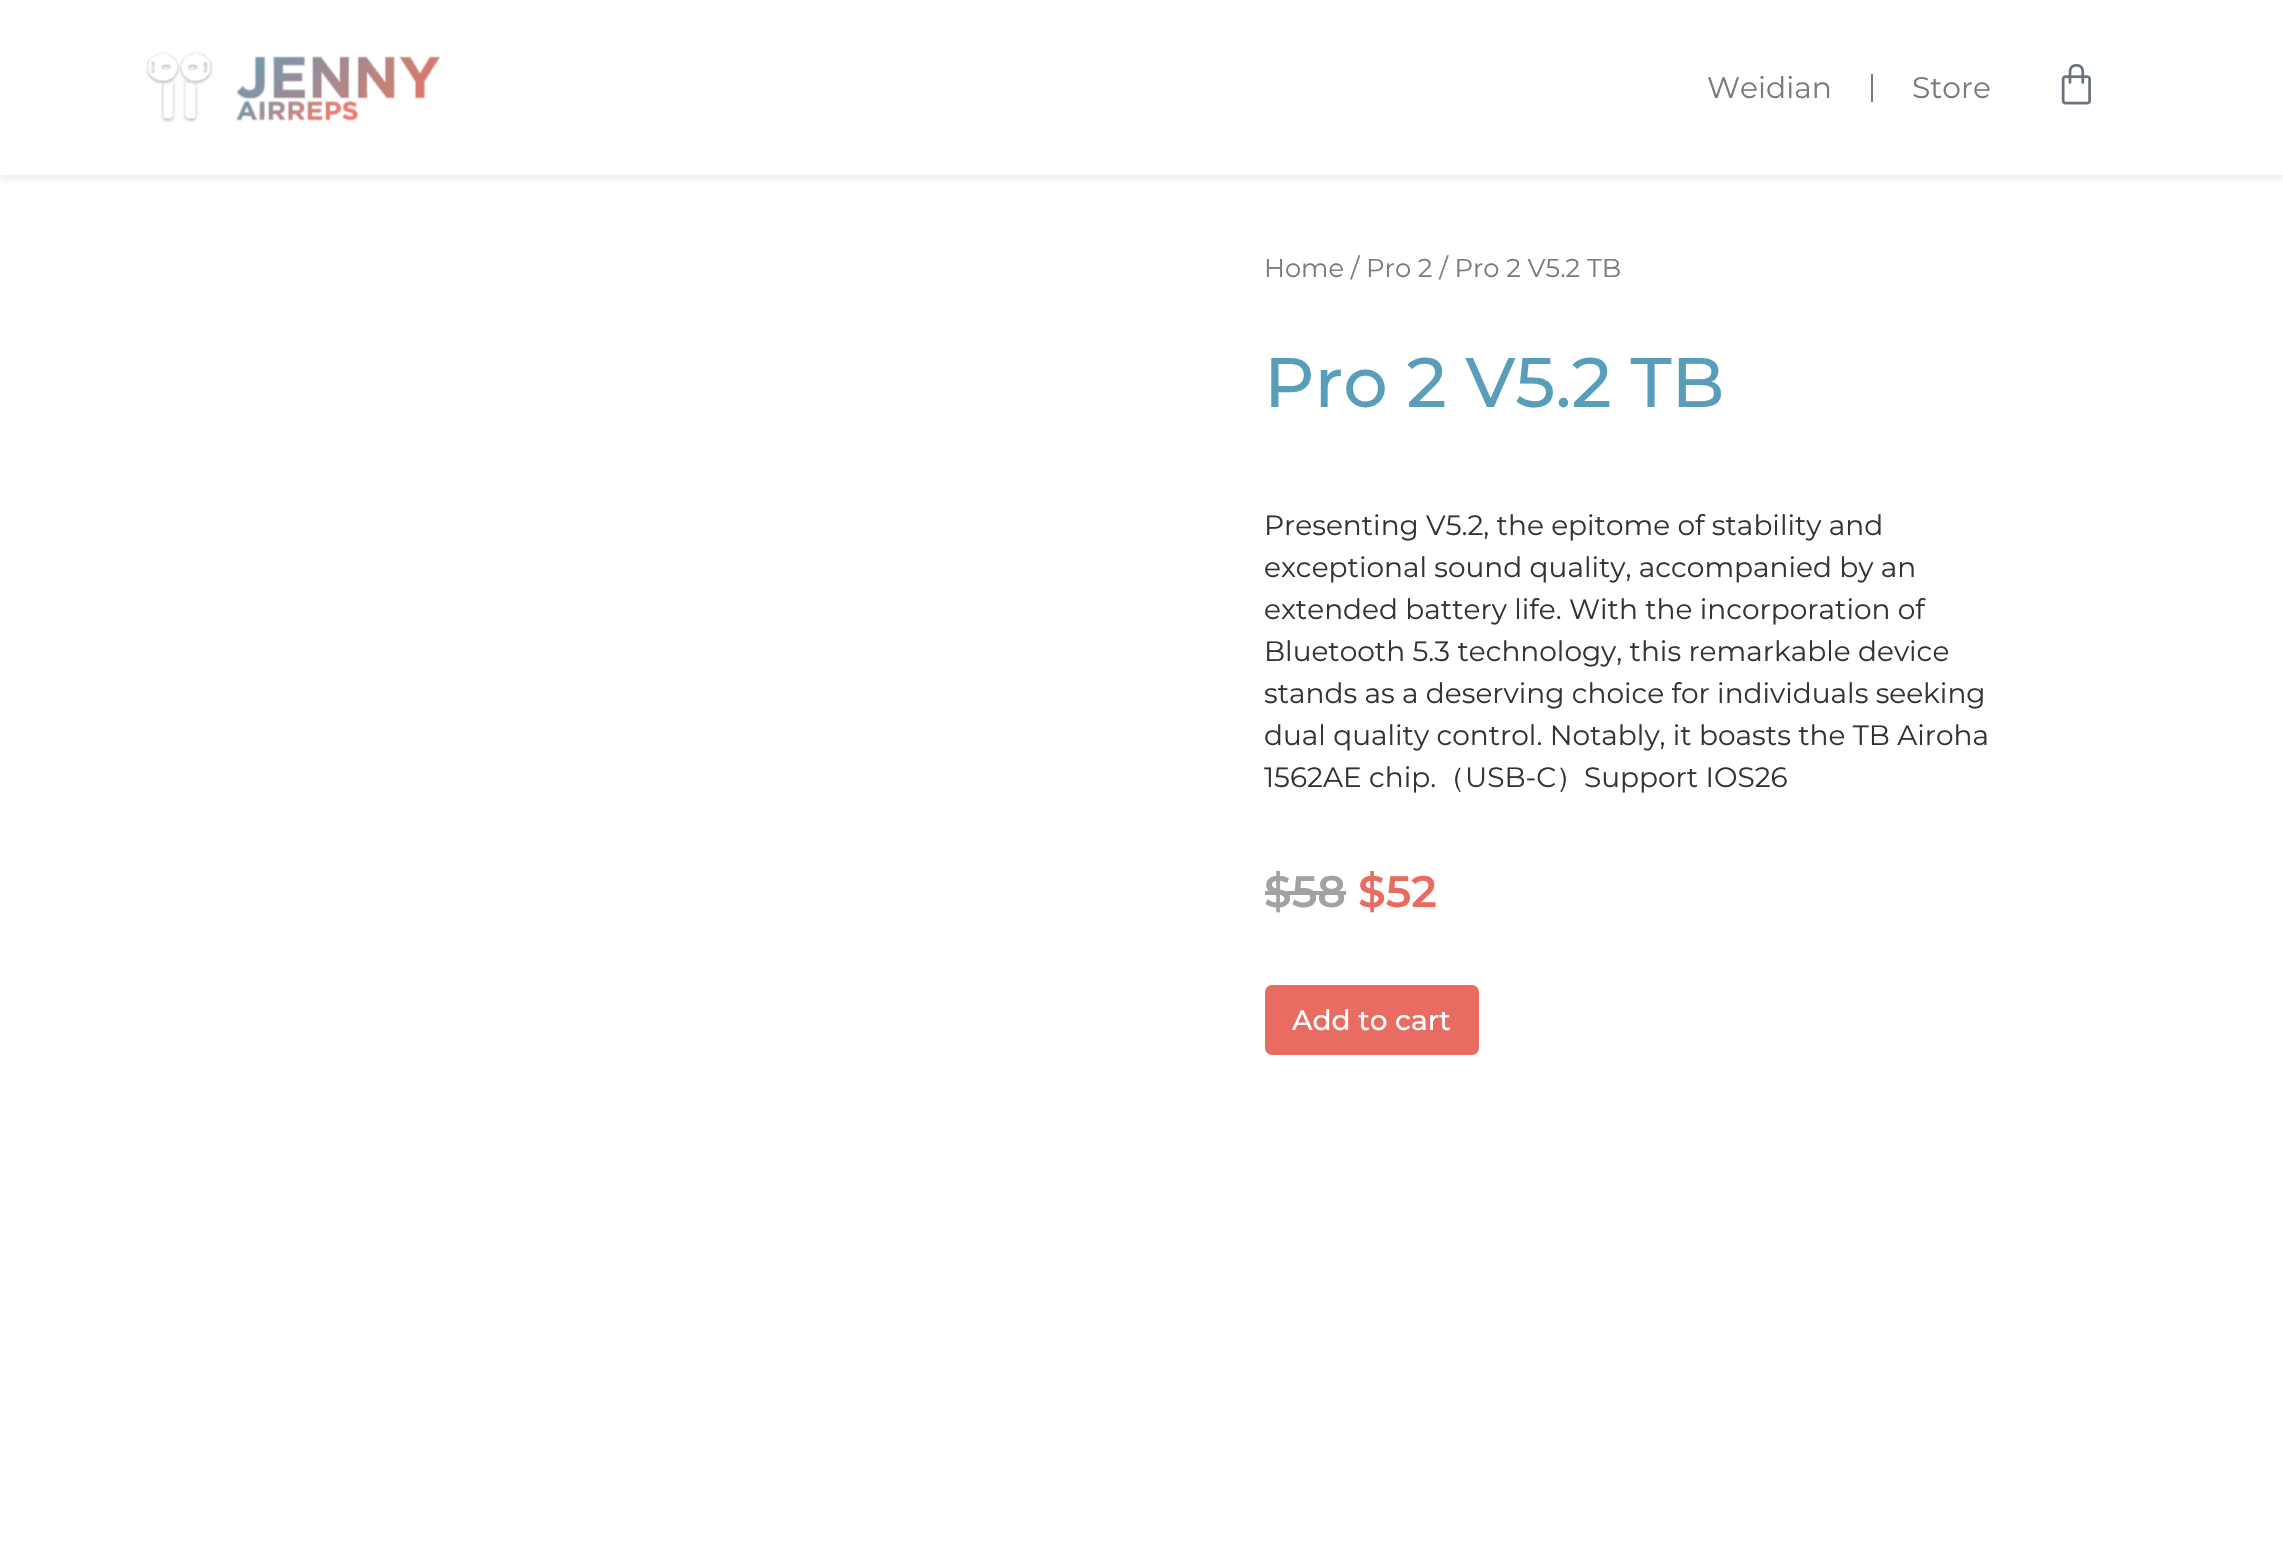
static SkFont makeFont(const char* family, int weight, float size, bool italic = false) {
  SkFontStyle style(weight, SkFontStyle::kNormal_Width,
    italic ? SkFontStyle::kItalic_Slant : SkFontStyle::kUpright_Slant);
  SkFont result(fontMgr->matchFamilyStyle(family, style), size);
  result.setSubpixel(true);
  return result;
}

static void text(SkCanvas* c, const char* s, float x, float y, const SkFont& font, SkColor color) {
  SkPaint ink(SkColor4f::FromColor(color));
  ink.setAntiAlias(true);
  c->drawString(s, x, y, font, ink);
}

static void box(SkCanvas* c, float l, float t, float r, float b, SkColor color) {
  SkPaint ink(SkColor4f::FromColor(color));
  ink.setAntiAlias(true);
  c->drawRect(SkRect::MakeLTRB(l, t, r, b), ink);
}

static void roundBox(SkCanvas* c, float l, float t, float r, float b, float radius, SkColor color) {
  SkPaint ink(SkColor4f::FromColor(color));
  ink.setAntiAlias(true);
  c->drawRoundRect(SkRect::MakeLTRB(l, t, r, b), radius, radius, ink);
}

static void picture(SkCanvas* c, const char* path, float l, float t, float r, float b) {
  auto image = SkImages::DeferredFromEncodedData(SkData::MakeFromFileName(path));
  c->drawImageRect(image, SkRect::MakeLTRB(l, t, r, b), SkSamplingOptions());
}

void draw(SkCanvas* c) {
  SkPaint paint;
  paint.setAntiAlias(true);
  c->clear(0xffffffff);
  c->save();
  c->clipRect(SkRect::MakeLTRB(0, 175, 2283, 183));
  paint.setColor(0x12000000);
  paint.setMaskFilter(SkMaskFilter::MakeBlur(kNormal_SkBlurStyle, 4.5f));
  c->drawRect(SkRect::MakeLTRB(0, 5, 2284, 180), paint);
  paint.setMaskFilter(nullptr);
  c->restore();
  picture(c, "img_01.png", 146, 52, 441, 123);
  SkFont face1 = makeFont("Montserrat", 400, 29.75f);
  text(c, "Weidian", 1707, 98, face1, 0xff7a7a7a);
  box(c, 1871, 74, 1873, 102, 0xff7a7a7a);
  text(c, "Store", 1912, 98, face1, 0xff7a7a7a);
  picture(c, "img_02.png", 2061, 64, 2091, 105);
  SkFont face2 = makeFont("Montserrat", 400, 25.75f);
  text(c, "Home / Pro 2 / Pro 2 V5.2 TB", 1264, 277, face2, 0xff7a7a7a);
  SkFont face3 = makeFont("Montserrat", 500, 70);
  text(c, "Pro 2 V5.2 TB", 1264, 407, face3, 0xff589dba);
  SkFont face4 = makeFont("Montserrat", 400, 28);
  text(c, "Presenting V5.2, the epitome of stability and", 1264, 535, face4, 0xff333333);
  text(c, "exceptional sound quality, accompanied by an", 1264, 577, face4, 0xff333333);
  text(c, "extended battery life. With the incorporation of", 1264, 619, face4, 0xff333333);
  text(c, "Bluetooth 5.3 technology, this remarkable device", 1264, 661, face4, 0xff333333);
  text(c, "stands as a deserving choice for individuals seeking", 1264, 703, face4, 0xff333333);
  text(c, "dual quality control. Notably, it boasts the TB Airoha", 1264, 745, face4, 0xff333333);
  text(c, "1562AE chip.", 1264, 787, face4, 0xff333333);
  SkFont face5 = makeFont("WenQuanYi Zen Hei", 500, 28);
  text(c, "（", 1437, 787, face5, 0xff333333);
  text(c, "USB-C", 1465, 787, face4, 0xff333333);
  text(c, "）", 1556, 787, face5, 0xff333333);
  text(c, "Support IOS26", 1584, 787, face4, 0xff333333);
  SkFont face6 = makeFont("Montserrat", 600, 44);
  text(c, "$58", 1264, 907, face6, 0xffa2a2a2);
  box(c, 1265, 891, 1346, 895, 0xffa2a2a2);
  text(c, "$52", 1358, 907, face6, 0xffe96c62);
  roundBox(c, 1265, 985, 1479, 1055, 7, 0xffe96c62);
  SkFont face7 = makeFont("Montserrat", 500, 28);
  text(c, "Add to cart", 1292, 1030, face7, 0xffffffff);
}
